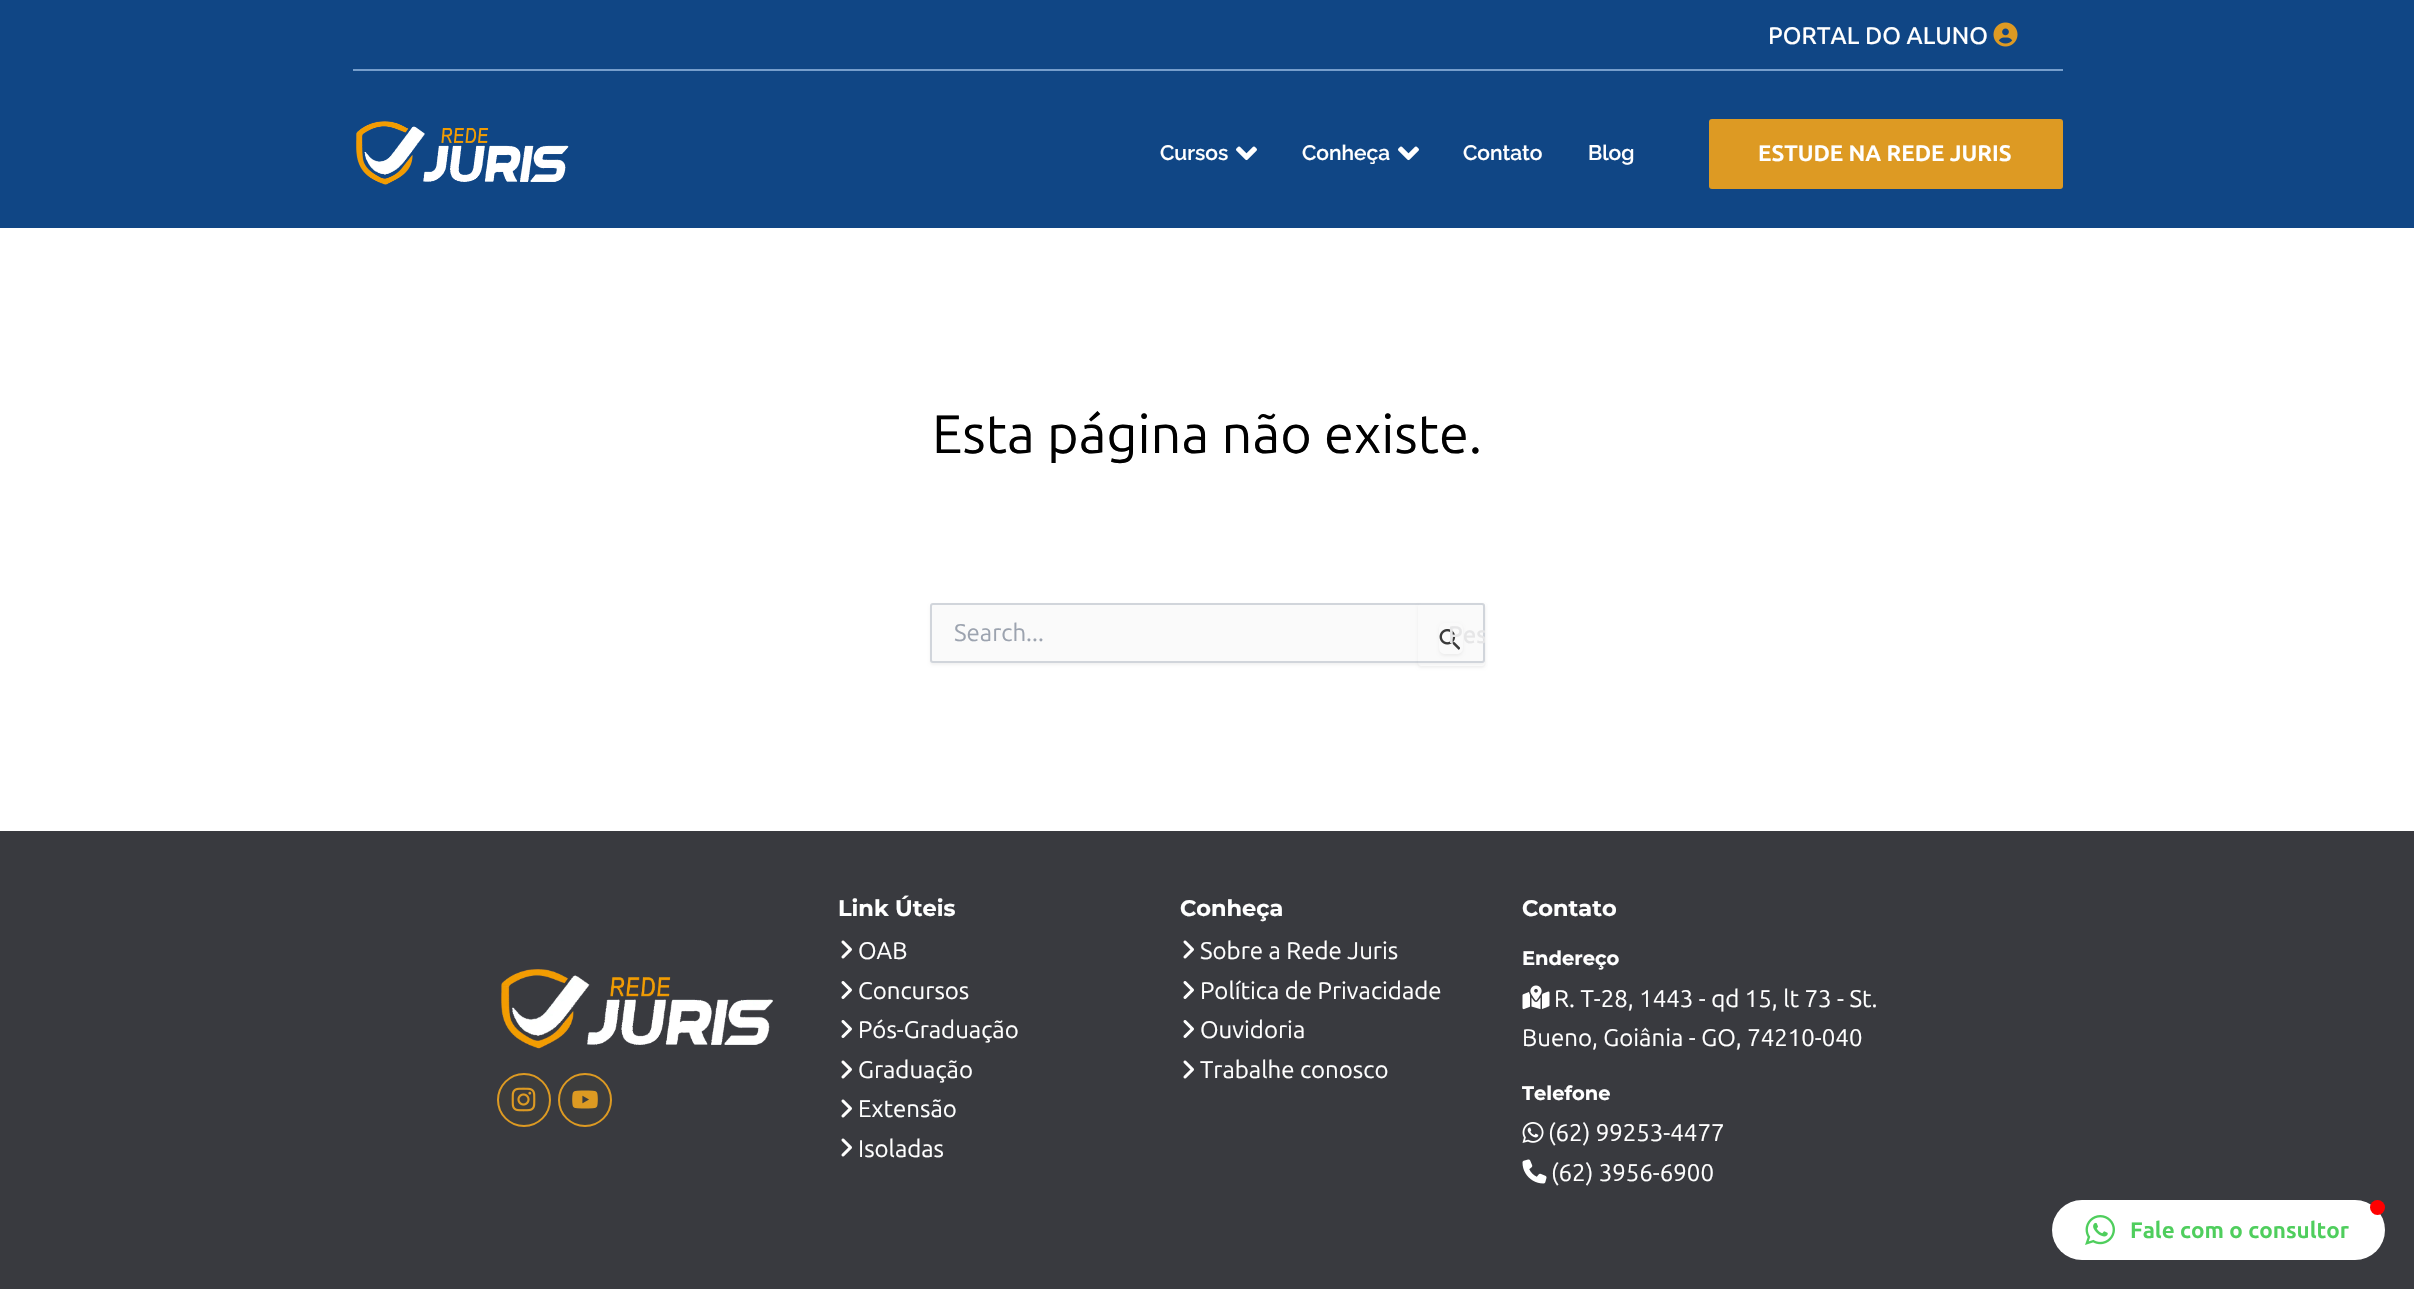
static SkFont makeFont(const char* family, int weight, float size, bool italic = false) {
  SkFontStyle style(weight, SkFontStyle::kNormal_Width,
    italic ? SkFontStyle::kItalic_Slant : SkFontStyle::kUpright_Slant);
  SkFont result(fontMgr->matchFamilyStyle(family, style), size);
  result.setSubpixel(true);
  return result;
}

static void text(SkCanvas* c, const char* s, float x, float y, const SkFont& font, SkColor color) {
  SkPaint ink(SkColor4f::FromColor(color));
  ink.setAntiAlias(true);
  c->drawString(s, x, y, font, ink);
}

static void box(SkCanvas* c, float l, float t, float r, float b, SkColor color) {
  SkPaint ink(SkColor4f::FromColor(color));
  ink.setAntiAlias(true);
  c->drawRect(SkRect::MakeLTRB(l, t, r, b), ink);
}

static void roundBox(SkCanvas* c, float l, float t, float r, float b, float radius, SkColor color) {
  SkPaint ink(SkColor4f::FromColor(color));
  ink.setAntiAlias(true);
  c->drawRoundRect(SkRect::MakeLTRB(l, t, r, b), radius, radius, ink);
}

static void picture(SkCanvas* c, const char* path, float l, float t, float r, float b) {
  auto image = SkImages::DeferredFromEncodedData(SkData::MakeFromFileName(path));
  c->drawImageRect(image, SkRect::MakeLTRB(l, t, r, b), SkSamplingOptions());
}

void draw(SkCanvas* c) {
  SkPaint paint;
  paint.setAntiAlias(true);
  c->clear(0xffffffff);
  box(c, 0, 0, 2414, 228, 0xff104685);
  SkFont face1 = makeFont("Ubuntu", 500, 24);
  text(c, "PORTAL DO ALUNO", 1768, 44, face1, 0xffffffff);
  picture(c, "img_01.png", 1993, 22, 2018, 47);
  box(c, 353, 69, 2063, 71, 0xff769ecc);
  picture(c, "img_02.png", 356, 121, 569, 185);
  SkFont face2 = makeFont("Raleway", 600, 21);
  text(c, "Cursos", 1160, 160, face2, 0xffffffff);
  picture(c, "img_03.png", 1236, 146, 1257, 161);
  text(c, "Conheça", 1302, 160, face2, 0xffffffff);
  picture(c, "img_03.png", 1398, 146, 1419, 161);
  text(c, "Contato", 1463, 160, face2, 0xffffffff);
  text(c, "Blog", 1588, 160, face2, 0xffffffff);
  roundBox(c, 1709, 119, 2063, 189, 3, 0xffdd9a23);
  SkFont face3 = makeFont("Ubuntu", 700, 22.5f);
  text(c, "ESTUDE NA REDE JURIS", 1758, 161, face3, 0xffffffff);
  SkFont face4 = makeFont("Ubuntu", 400, 54);
  text(c, "Esta página não existe.", 932, 453, face4, 0xff000000);
  paint.setColor(0x0d000000);
  paint.setMaskFilter(SkMaskFilter::MakeBlur(kNormal_SkBlurStyle, 1.5f));
  c->drawRoundRect(SkRect::MakeLTRB(930, 605, 1485, 665), 3, 3, paint);
  paint.setMaskFilter(nullptr);
  paint.setColor(0xfffafafa);
  c->drawRoundRect(SkRect::MakeLTRB(931, 604, 1484, 662), 2, 2, paint);
  paint.setStyle(SkPaint::kStroke_Style);
  paint.setStrokeWidth(2);
  paint.setColor(0xffd1d5db);
  c->drawRoundRect(SkRect::MakeLTRB(931, 604, 1484, 662), 2, 2, paint);
  SkFont face5 = makeFont("Ubuntu", 400, 24);
  text(c, "Search...", 954, 641, face5, 0xff9ca3af);
  c->save();
  c->clipPath(SkPathBuilder(SkPathFillType::kEvenOdd).moveTo(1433, 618).lineTo(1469, 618).lineTo(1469, 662).lineTo(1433, 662).close().moveTo(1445, 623).lineTo(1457, 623).cubicTo(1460.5f, 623, 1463, 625.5f, 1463, 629).lineTo(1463, 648).cubicTo(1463, 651.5f, 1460.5f, 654, 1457, 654).lineTo(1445, 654).cubicTo(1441.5f, 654, 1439, 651.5f, 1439, 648).lineTo(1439, 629).cubicTo(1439, 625.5f, 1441.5f, 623, 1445, 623).close().detach(), true);
  paint.setStyle(SkPaint::kFill_Style);
  paint.setColor(0x0d000000);
  paint.setMaskFilter(SkMaskFilter::MakeBlur(kNormal_SkBlurStyle, 1.5f));
  c->drawRoundRect(SkRect::MakeLTRB(1439, 624, 1463, 656), 6, 6, paint);
  paint.setMaskFilter(nullptr);
  c->restore();
  picture(c, "img_04.png", 1439, 629, 1460, 650);
  c->save();
  c->clipPath(SkPathBuilder(SkPathFillType::kEvenOdd).moveTo(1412, 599).lineTo(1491, 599).lineTo(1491, 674).lineTo(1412, 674).close().moveTo(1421, 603).lineTo(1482, 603).cubicTo(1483.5f, 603, 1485, 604.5f, 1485, 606).lineTo(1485, 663).cubicTo(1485, 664.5f, 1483.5f, 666, 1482, 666).lineTo(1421, 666).cubicTo(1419.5f, 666, 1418, 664.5f, 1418, 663).lineTo(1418, 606).cubicTo(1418, 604.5f, 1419.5f, 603, 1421, 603).close().detach(), true);
  paint.setMaskFilter(SkMaskFilter::MakeBlur(kNormal_SkBlurStyle, 1.5f));
  c->drawRoundRect(SkRect::MakeLTRB(1418, 605, 1485, 668), 3, 3, paint);
  paint.setMaskFilter(nullptr);
  c->restore();
  c->save();
  c->clipPath(SkPathBuilder().moveTo(1421, 603).lineTo(1482, 603).cubicTo(1483.5f, 603, 1485, 604.5f, 1485, 606).lineTo(1485, 663).cubicTo(1485, 664.5f, 1483.5f, 666, 1482, 666).lineTo(1421, 666).cubicTo(1419.5f, 666, 1418, 664.5f, 1418, 663).lineTo(1418, 606).cubicTo(1418, 604.5f, 1419.5f, 603, 1421, 603).close().detach(), true);
  text(c, "Pes", 1448, 643, face1, 0xffe6e6e7);
  c->restore();
  box(c, 0, 831, 2414, 1289, 0xff393a3f);
  picture(c, "img_05.png", 501, 969, 773, 1049);
  paint.setColor(0xff3d3d3d);
  c->drawCircle(524, 1100, 26, paint);
  paint.setStyle(SkPaint::kStroke_Style);
  paint.setColor(0xffdd9a22);
  c->drawCircle(524, 1100, 26, paint);
  picture(c, "img_06.png", 511, 1087, 536, 1112);
  paint.setStyle(SkPaint::kFill_Style);
  paint.setColor(0xff3d3d3d);
  c->drawCircle(585, 1100, 26, paint);
  paint.setStyle(SkPaint::kStroke_Style);
  paint.setColor(0xffdd9a22);
  c->drawCircle(585, 1100, 26, paint);
  picture(c, "img_07.png", 572, 1090, 598, 1109);
  SkFont face6 = makeFont("Montserrat", 700, 22.5f);
  text(c, "Link Úteis", 838, 916, face6, 0xffffffff);
  picture(c, "img_08.png", 841, 940, 852, 959);
  text(c, "OAB", 858, 959, face5, 0xffffffff);
  picture(c, "img_09.png", 841, 981, 852, 999);
  text(c, "Concursos", 858, 999, face5, 0xffffffff);
  picture(c, "img_09.png", 841, 1020, 852, 1038);
  text(c, "Pós-Graduação", 858, 1038, face5, 0xffffffff);
  picture(c, "img_08.png", 841, 1060, 852, 1079);
  text(c, "Graduação", 858, 1078, face5, 0xffffffff);
  picture(c, "img_08.png", 841, 1099, 852, 1118);
  text(c, "Extensão", 858, 1117, face5, 0xffffffff);
  picture(c, "img_08.png", 841, 1138, 852, 1157);
  text(c, "Isoladas", 858, 1157, face5, 0xffffffff);
  text(c, "Conheça", 1180, 916, face6, 0xffffffff);
  picture(c, "img_08.png", 1183, 940, 1194, 959);
  text(c, "Sobre a Rede Juris", 1200, 959, face5, 0xffffffff);
  picture(c, "img_09.png", 1183, 981, 1194, 999);
  text(c, "Política de Privacidade", 1200, 999, face5, 0xffffffff);
  picture(c, "img_09.png", 1183, 1020, 1194, 1038);
  text(c, "Ouvidoria", 1200, 1038, face5, 0xffffffff);
  picture(c, "img_08.png", 1183, 1060, 1194, 1079);
  text(c, "Trabalhe conosco", 1200, 1078, face5, 0xffffffff);
  text(c, "Contato", 1522, 916, face6, 0xffffffff);
  SkFont face7 = makeFont("Montserrat", 700, 19.5f);
  text(c, "Endereço", 1522, 965, face7, 0xffffffff);
  picture(c, "img_10.png", 1522, 985, 1550, 1010);
  text(c, "R. T-28, 1443 - qd 15, lt 73 - St.", 1554, 1007, face5, 0xffffffff);
  text(c, "Bueno, Goiânia - GO, 74210-040", 1522, 1046, face5, 0xffffffff);
  text(c, "Telefone", 1522, 1100, face7, 0xffffffff);
  picture(c, "img_11.png", 1522, 1122, 1544, 1143);
  text(c, "(62) 99253-4477", 1548, 1141, face5, 0xffffffff);
  picture(c, "img_12.png", 1522, 1159, 1547, 1184);
  text(c, "(62) 3956-6900", 1551, 1181, face5, 0xffffffff);
  roundBox(c, 2052, 1200, 2385, 1260, 30, 0xffffffff);
  paint.setStyle(SkPaint::kFill_Style);
  paint.setColor(0xffff0000);
  c->drawCircle(2377.5f, 1207.5f, 7.5f, paint);
  picture(c, "img_13.png", 2085, 1215, 2115, 1245);
  text(c, "Fale com o consultor", 2130, 1238, face3, 0xff4fce5d);
}
